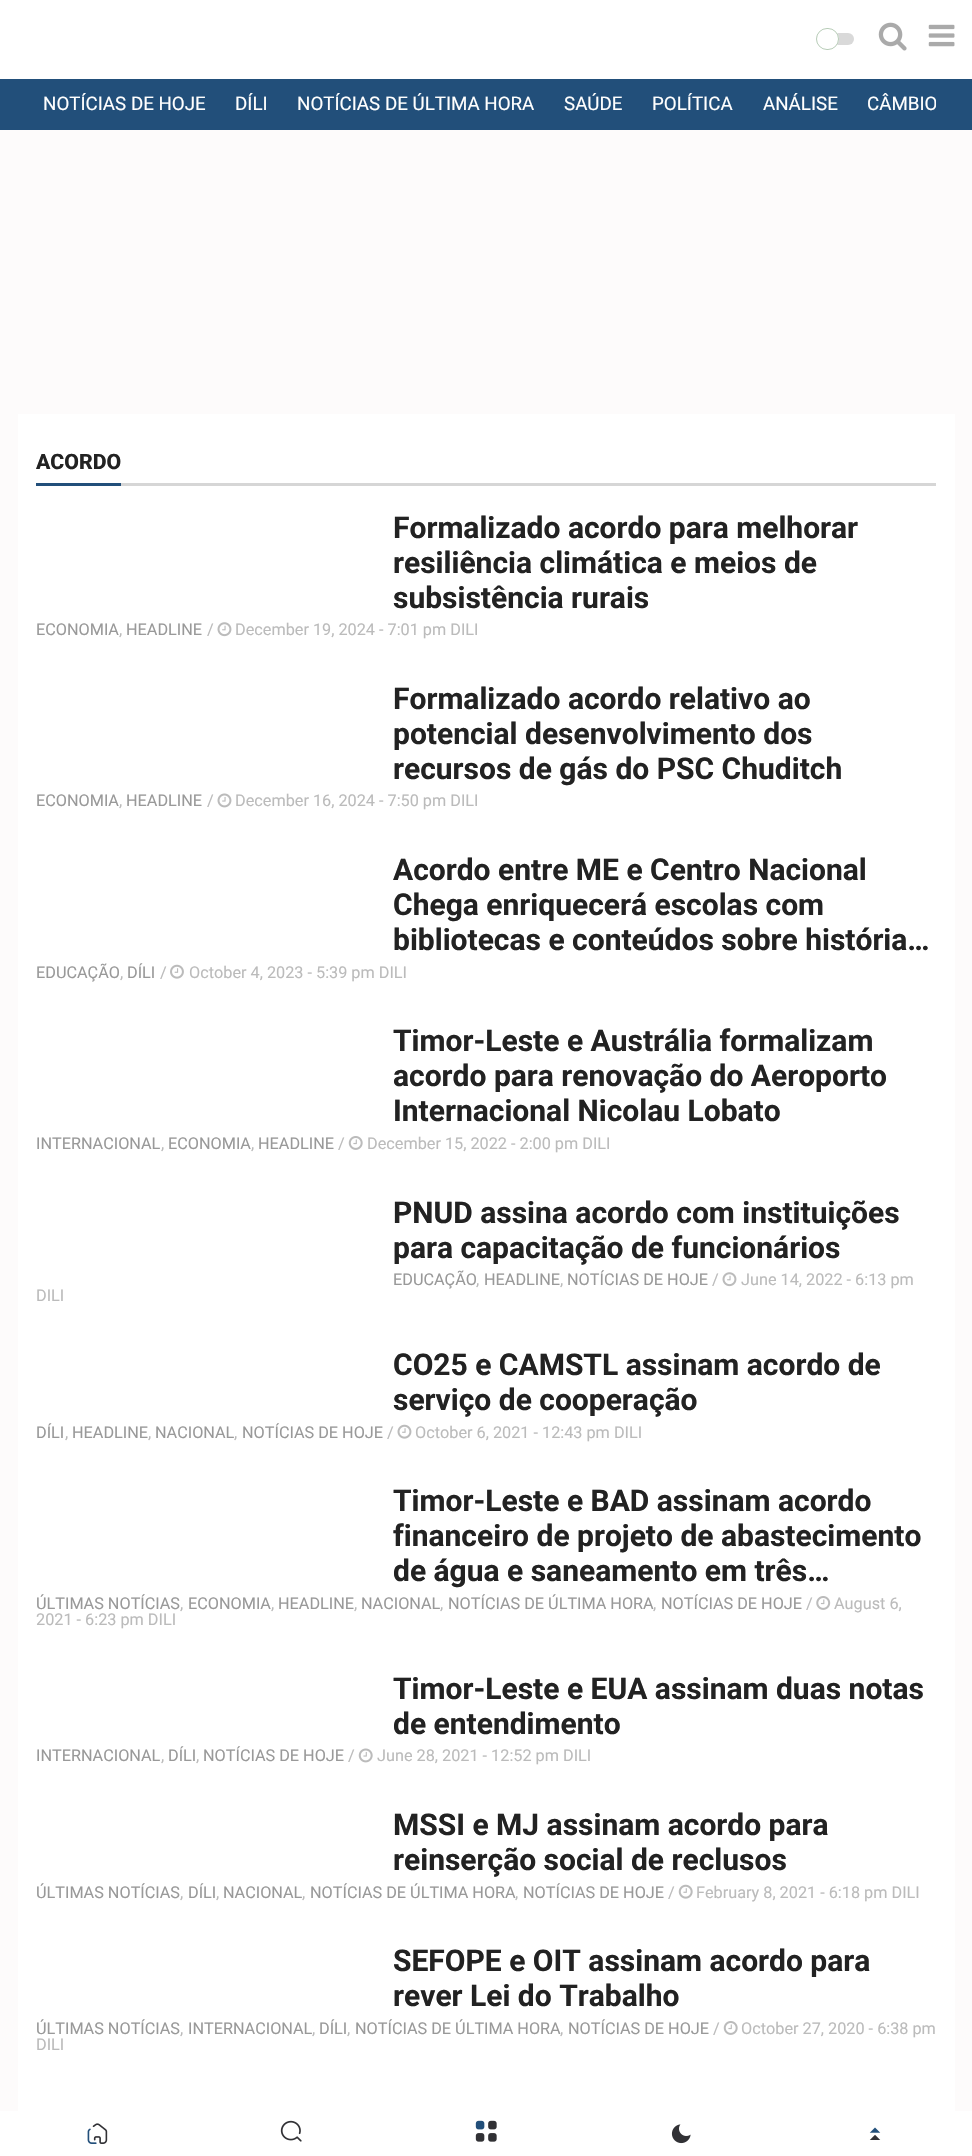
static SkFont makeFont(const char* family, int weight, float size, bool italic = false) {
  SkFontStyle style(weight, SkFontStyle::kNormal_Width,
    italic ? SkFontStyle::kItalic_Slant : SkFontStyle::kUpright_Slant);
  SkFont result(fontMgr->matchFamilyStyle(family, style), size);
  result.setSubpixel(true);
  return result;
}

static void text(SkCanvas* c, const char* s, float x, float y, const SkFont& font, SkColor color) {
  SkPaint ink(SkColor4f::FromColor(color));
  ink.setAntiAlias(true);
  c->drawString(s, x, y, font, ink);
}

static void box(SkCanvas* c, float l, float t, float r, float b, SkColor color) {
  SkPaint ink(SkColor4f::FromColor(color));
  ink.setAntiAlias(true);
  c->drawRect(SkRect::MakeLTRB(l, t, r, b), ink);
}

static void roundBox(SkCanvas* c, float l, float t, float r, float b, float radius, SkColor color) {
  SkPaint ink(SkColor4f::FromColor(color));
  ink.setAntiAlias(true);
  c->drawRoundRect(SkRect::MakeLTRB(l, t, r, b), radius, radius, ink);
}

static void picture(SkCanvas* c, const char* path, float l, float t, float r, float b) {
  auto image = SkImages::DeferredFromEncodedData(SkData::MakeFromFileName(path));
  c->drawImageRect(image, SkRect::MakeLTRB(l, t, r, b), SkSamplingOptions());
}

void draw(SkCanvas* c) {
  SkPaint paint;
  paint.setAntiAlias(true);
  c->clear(0xfffdfbfb);
  box(c, 0, 0, 972, 79, 0xffffffff);
  roundBox(c, 816, 33, 854, 45, 6, 0xffd9d9d9);
  roundBox(c, 816, 28, 839, 50, 11, 0xffffffff);
  paint.setStyle(SkPaint::kStroke_Style);
  paint.setStrokeWidth(1);
  paint.setColor(0x572c692b);
  c->drawRoundRect(SkRect::MakeLTRB(816.5f, 28.5f, 838.5f, 49.5f), 10.5f, 10.5f, paint);
  picture(c, "img_01.png", 878, 22, 907, 51);
  picture(c, "img_02.png", 928, 24, 955, 47);
  box(c, 0, 79, 972, 130, 0xff224f7a);
  SkFont face1 = makeFont("Roboto", 400, 18.75f);
  text(c, "NOTÍCIAS DE HOJE", 43, 110, face1, 0xffffffff);
  text(c, "DÍLI", 235, 110, face1, 0xffffffff);
  text(c, "NOTÍCIAS DE ÚLTIMA HORA", 297, 110, face1, 0xffffffff);
  text(c, "SAÚDE", 564, 110, face1, 0xffffffff);
  text(c, "POLÍTICA", 652, 110, face1, 0xffffffff);
  text(c, "ANÁLISE", 763, 110, face1, 0xffffffff);
  c->save();
  c->clipRect(SkRect::MakeLTRB(36, 79, 936, 130));
  text(c, "CÂMBIO", 867, 110, face1, 0xffffffff);
  c->restore();
  box(c, 18, 414, 955, 2111, 0xffffffff);
  box(c, 121, 483, 936, 486, 0xffd6d6d6);
  box(c, 36, 483, 121, 486, 0xff224f7a);
  SkFont face2 = makeFont("Roboto", 800, 21.25f);
  text(c, "ACORDO", 36, 469, face2, 0xff222222);
  SkFont face3 = makeFont("Roboto", 700, 30);
  text(c, "Formalizado acordo para melhorar", 393, 538, face3, 0xff222222);
  text(c, "resiliência climática e meios de", 393, 573, face3, 0xff222222);
  text(c, "subsistência rurais", 393, 608, face3, 0xff222222);
  SkFont face4 = makeFont("Roboto", 400, 16.25f);
  text(c, "ECONOMIA", 36, 635, face4, 0xff999999);
  text(c, ",", 119, 635, face4, 0xffbbbbbb);
  text(c, "HEADLINE", 126, 635, face4, 0xff999999);
  text(c, "/", 207, 635, face4, 0xffbbbbbb);
  picture(c, "img_03.png", 217, 622, 232, 637);
  text(c, "December 19, 2024 - 7:01 pm DILI", 235, 635, face4, 0xffbbbbbb);
  text(c, "Formalizado acordo relativo ao", 393, 709, face3, 0xff222222);
  text(c, "potencial desenvolvimento dos", 393, 744, face3, 0xff222222);
  text(c, "recursos de gás do PSC Chuditch", 393, 779, face3, 0xff222222);
  text(c, "ECONOMIA", 36, 806, face4, 0xff999999);
  text(c, ",", 119, 806, face4, 0xffbbbbbb);
  text(c, "HEADLINE", 126, 806, face4, 0xff999999);
  text(c, "/", 207, 806, face4, 0xffbbbbbb);
  picture(c, "img_04.png", 217, 793, 232, 808);
  text(c, "December 16, 2024 - 7:50 pm DILI", 235, 806, face4, 0xffbbbbbb);
  text(c, "Acordo entre ME e Centro Nacional", 393, 880, face3, 0xff222222);
  text(c, "Chega enriquecerá escolas com", 393, 915, face3, 0xff222222);
  text(c, "bibliotecas e conteúdos sobre história…", 393, 950, face3, 0xff222222);
  text(c, "EDUCAÇÃO", 36, 978, face4, 0xff999999);
  text(c, ",", 120, 978, face4, 0xffbbbbbb);
  text(c, "DÍLI", 127, 978, face4, 0xff999999);
  text(c, "/", 160, 978, face4, 0xffbbbbbb);
  picture(c, "img_05.png", 170, 964, 184, 979);
  text(c, "October 4, 2023 - 5:39 pm DILI", 189, 978, face4, 0xffbbbbbb);
  text(c, "Timor-Leste e Austrália formalizam", 393, 1051, face3, 0xff222222);
  text(c, "acordo para renovação do Aeroporto", 393, 1086, face3, 0xff222222);
  text(c, "Internacional Nicolau Lobato", 393, 1121, face3, 0xff222222);
  text(c, "INTERNACIONAL", 36, 1149, face4, 0xff999999);
  text(c, ",", 161, 1149, face4, 0xffbbbbbb);
  text(c, "ECONOMIA", 168, 1149, face4, 0xff999999);
  text(c, ",", 251, 1149, face4, 0xffbbbbbb);
  text(c, "HEADLINE", 258, 1149, face4, 0xff999999);
  text(c, "/", 338, 1149, face4, 0xffbbbbbb);
  picture(c, "img_06.png", 348, 1136, 363, 1150);
  text(c, "December 15, 2022 - 2:00 pm DILI", 367, 1149, face4, 0xffbbbbbb);
  text(c, "PNUD assina acordo com instituições", 393, 1223, face3, 0xff222222);
  text(c, "para capacitação de funcionários", 393, 1258, face3, 0xff222222);
  text(c, "EDUCAÇÃO", 393, 1285, face4, 0xff999999);
  text(c, "NOTÍCIAS DE HOJE", 567, 1285, face4, 0xff999999);
  picture(c, "img_03.png", 722, 1272, 737, 1287);
  text(c, "June 14, 2022 - 6:13 pm", 741, 1285, face4, 0xffbbbbbb);
  text(c, "DILI", 36, 1301, face4, 0xffbbbbbb);
  text(c, ",", 476, 1285, face4, 0xffbbbbbb);
  text(c, "HEADLINE", 484, 1285, face4, 0xff999999);
  text(c, ",", 560, 1285, face4, 0xffbbbbbb);
  text(c, "/", 712, 1285, face4, 0xffbbbbbb);
  text(c, "CO25 e CAMSTL assinam acordo de", 393, 1375, face3, 0xff222222);
  text(c, "serviço de cooperação", 393, 1410, face3, 0xff222222);
  text(c, "DÍLI", 36, 1438, face4, 0xff999999);
  text(c, ",", 65, 1438, face4, 0xffbbbbbb);
  text(c, "HEADLINE", 72, 1438, face4, 0xff999999);
  text(c, ",", 148, 1438, face4, 0xffbbbbbb);
  text(c, "NACIONAL", 155, 1438, face4, 0xff999999);
  text(c, ",", 234, 1438, face4, 0xffbbbbbb);
  text(c, "NOTÍCIAS DE HOJE", 242, 1438, face4, 0xff999999);
  text(c, "/", 387, 1438, face4, 0xffbbbbbb);
  picture(c, "img_07.png", 397, 1424, 412, 1439);
  text(c, "October 6, 2021 - 12:43 pm DILI", 415, 1438, face4, 0xffbbbbbb);
  text(c, "Timor-Leste e BAD assinam acordo", 393, 1511, face3, 0xff222222);
  c->save();
  c->clipRect(SkRect::MakeLTRB(393, 1484, 936, 1589));
  text(c, "financeiro de projeto de abastecimento", 393, 1546, face3, 0xff222222);
  c->restore();
  text(c, "de água e saneamento em três…", 393, 1581, face3, 0xff222222);
  text(c, "ÚLTIMAS NOTÍCIAS", 36, 1609, face4, 0xff999999);
  text(c, "NOTÍCIAS DE ÚLTIMA HORA", 448, 1609, face4, 0xff999999);
  text(c, "NOTÍCIAS DE HOJE", 661, 1609, face4, 0xff999999);
  picture(c, "img_08.png", 816, 1596, 831, 1610);
  text(c, "August 6,", 834, 1609, face4, 0xffbbbbbb);
  text(c, "2021 - 6:23 pm DILI", 36, 1625, face4, 0xffbbbbbb);
  text(c, ",", 180, 1609, face4, 0xffbbbbbb);
  text(c, "ECONOMIA", 188, 1609, face4, 0xff999999);
  text(c, ",", 271, 1609, face4, 0xffbbbbbb);
  text(c, "HEADLINE", 278, 1609, face4, 0xff999999);
  text(c, ",", 354, 1609, face4, 0xffbbbbbb);
  text(c, "NACIONAL", 361, 1609, face4, 0xff999999);
  text(c, ",", 440, 1609, face4, 0xffbbbbbb);
  text(c, ",", 653, 1609, face4, 0xffbbbbbb);
  text(c, "/", 806, 1609, face4, 0xffbbbbbb);
  text(c, "Timor-Leste e EUA assinam duas notas", 393, 1699, face3, 0xff222222);
  text(c, "de entendimento", 393, 1734, face3, 0xff222222);
  text(c, "INTERNACIONAL", 36, 1761, face4, 0xff999999);
  text(c, ",", 161, 1761, face4, 0xffbbbbbb);
  text(c, "DÍLI", 168, 1761, face4, 0xff999999);
  text(c, ",", 196, 1761, face4, 0xffbbbbbb);
  text(c, "NOTÍCIAS DE HOJE", 203, 1761, face4, 0xff999999);
  text(c, "/", 348, 1761, face4, 0xffbbbbbb);
  picture(c, "img_09.png", 358, 1748, 373, 1763);
  text(c, "June 28, 2021 - 12:52 pm DILI", 377, 1761, face4, 0xffbbbbbb);
  text(c, "MSSI e MJ assinam acordo para", 393, 1835, face3, 0xff222222);
  text(c, "reinserção social de reclusos", 393, 1870, face3, 0xff222222);
  text(c, "ÚLTIMAS NOTÍCIAS", 36, 1898, face4, 0xff999999);
  text(c, ",", 180, 1898, face4, 0xffbbbbbb);
  text(c, "DÍLI", 188, 1898, face4, 0xff999999);
  text(c, ",", 216, 1898, face4, 0xffbbbbbb);
  text(c, "NACIONAL", 223, 1898, face4, 0xff999999);
  text(c, ",", 302, 1898, face4, 0xffbbbbbb);
  text(c, "NOTÍCIAS DE ÚLTIMA HORA", 310, 1898, face4, 0xff999999);
  text(c, ",", 515, 1898, face4, 0xffbbbbbb);
  text(c, "NOTÍCIAS DE HOJE", 523, 1898, face4, 0xff999999);
  text(c, "/", 668, 1898, face4, 0xffbbbbbb);
  picture(c, "img_10.png", 678, 1884, 693, 1899);
  text(c, "February 8, 2021 - 6:18 pm DILI", 696, 1898, face4, 0xffbbbbbb);
  text(c, "SEFOPE e OIT assinam acordo para", 393, 1971, face3, 0xff222222);
  text(c, "rever Lei do Trabalho", 393, 2006, face3, 0xff222222);
  text(c, "ÚLTIMAS NOTÍCIAS", 36, 2034, face4, 0xff999999);
  text(c, "DÍLI", 319, 2034, face4, 0xff999999);
  text(c, "NOTÍCIAS DE ÚLTIMA HORA", 355, 2034, face4, 0xff999999);
  text(c, "NOTÍCIAS DE HOJE", 568, 2034, face4, 0xff999999);
  picture(c, "img_06.png", 723, 2021, 738, 2035);
  text(c, "October 27, 2020 - 6:38 pm", 741, 2034, face4, 0xffbbbbbb);
  text(c, "DILI", 36, 2050, face4, 0xffbbbbbb);
  text(c, ",", 180, 2034, face4, 0xffbbbbbb);
  text(c, "INTERNACIONAL", 188, 2034, face4, 0xff999999);
  text(c, ",", 312, 2034, face4, 0xffbbbbbb);
  text(c, ",", 347, 2034, face4, 0xffbbbbbb);
  text(c, ",", 560, 2034, face4, 0xffbbbbbb);
  text(c, "/", 713, 2034, face4, 0xffbbbbbb);
  box(c, 0, 2111, 972, 2156, 0xffffffff);
  picture(c, "img_11.png", 87, 2123, 108, 2144);
  picture(c, "img_12.png", 280, 2120, 302, 2142);
  picture(c, "img_13.png", 475, 2120, 497, 2142);
  picture(c, "img_14.png", 671, 2124, 691, 2144);
  picture(c, "img_15.png", 869, 2127, 881, 2140);
}
